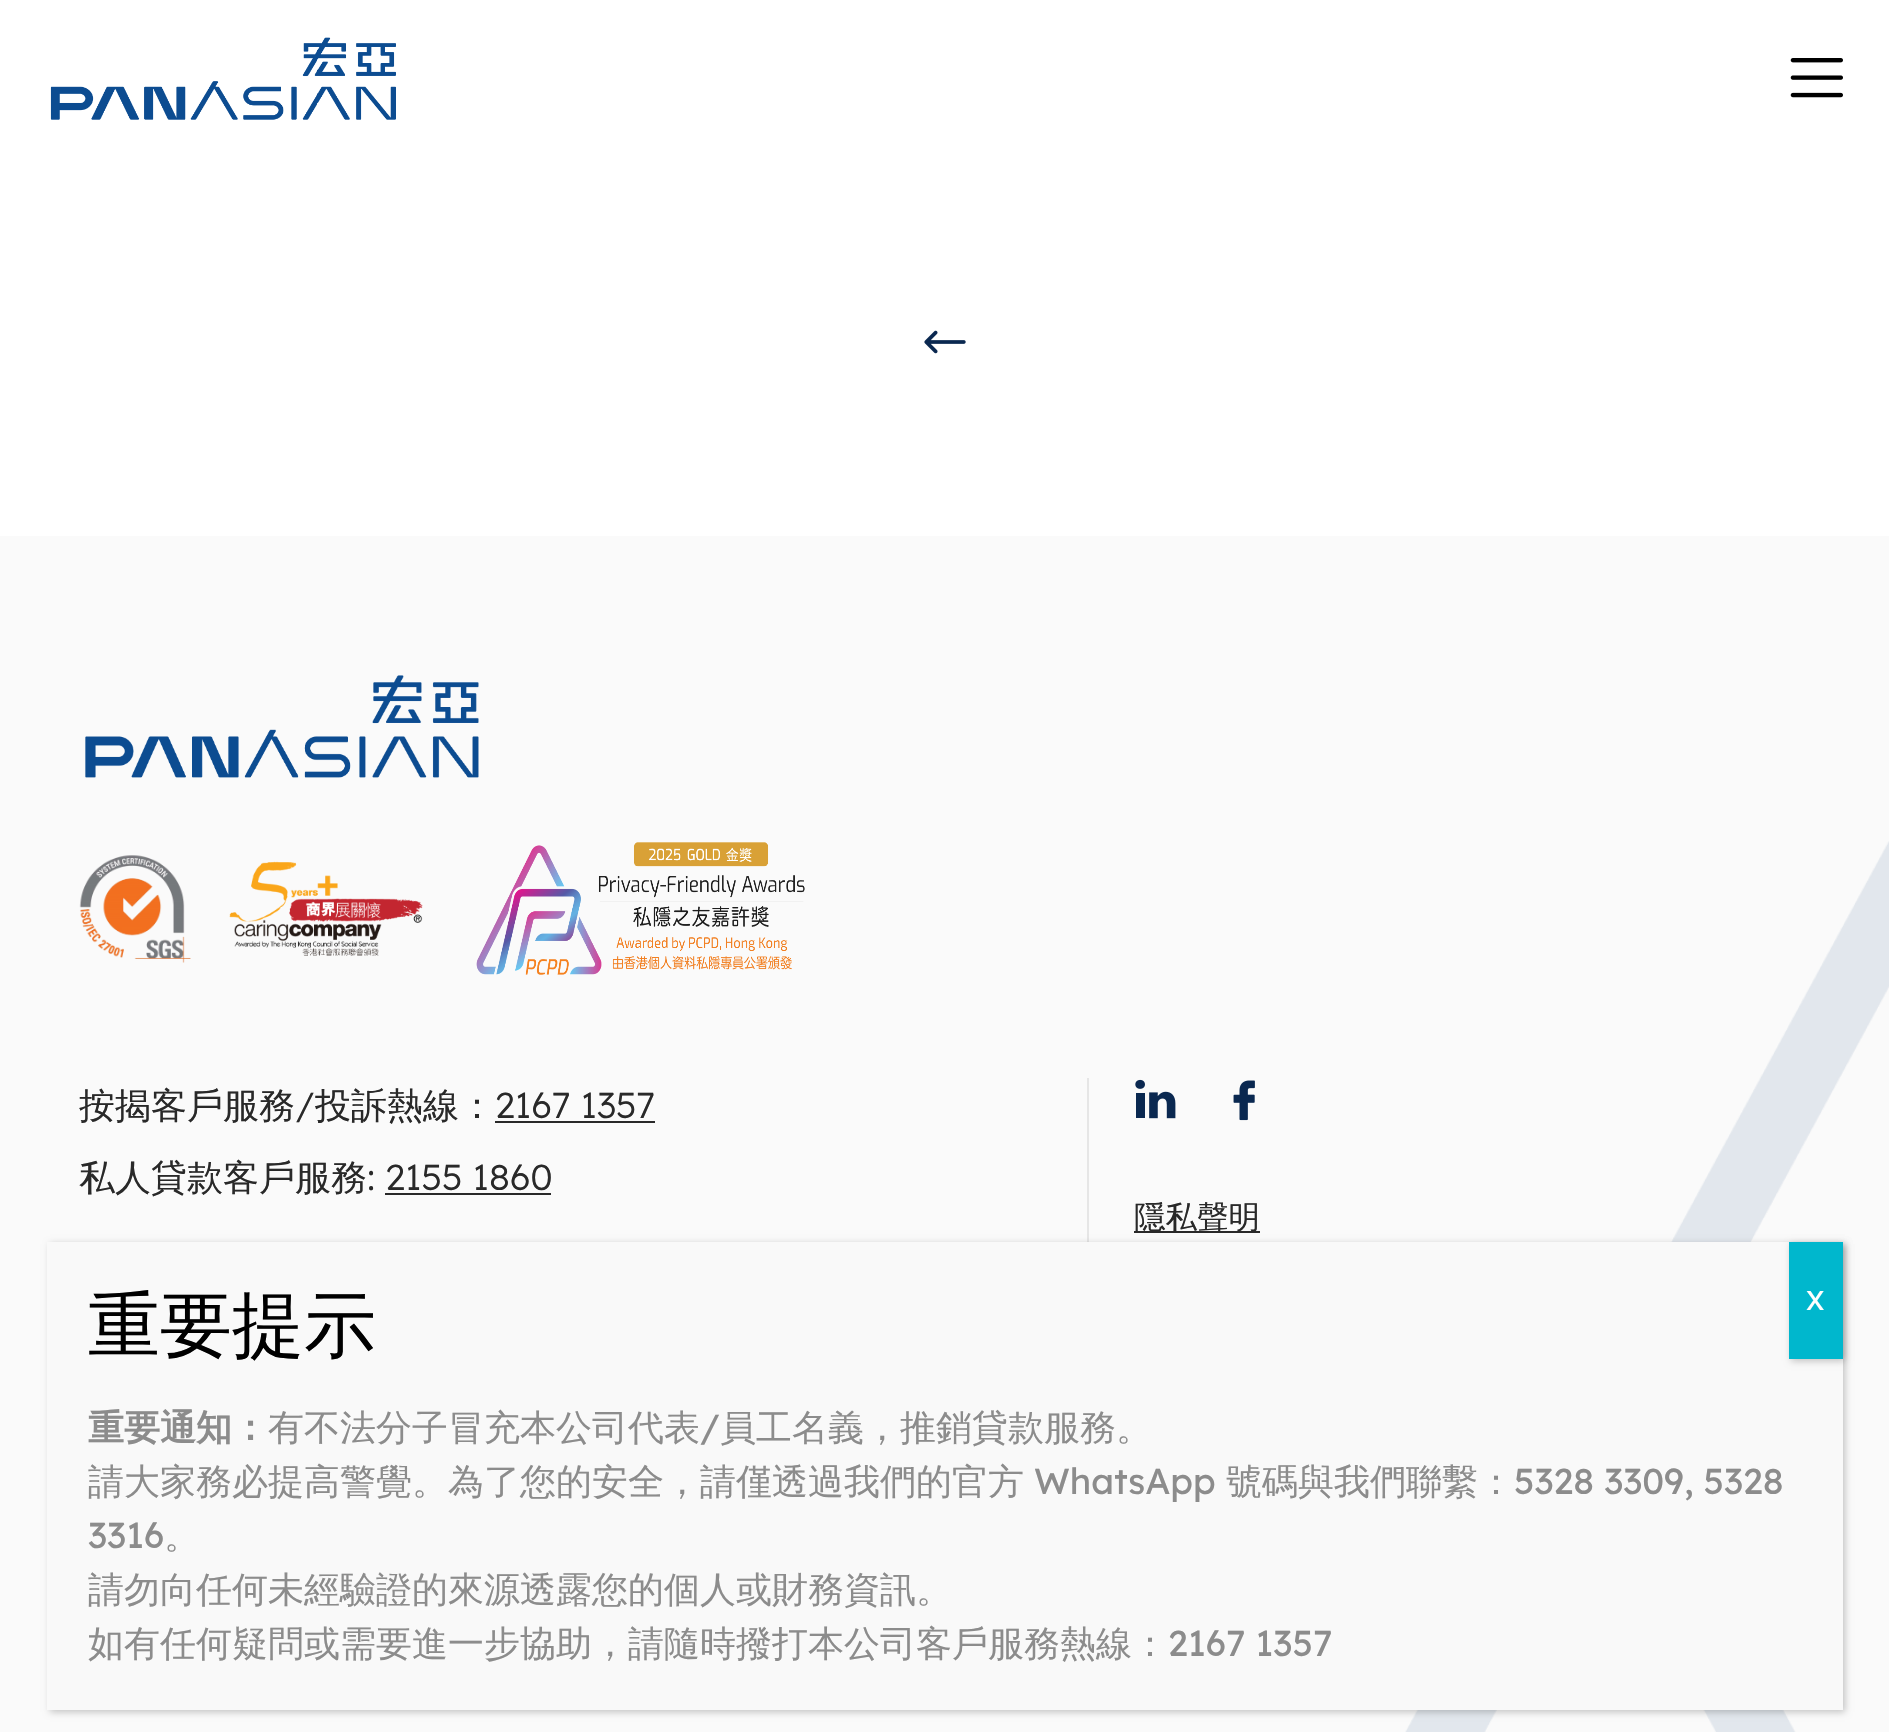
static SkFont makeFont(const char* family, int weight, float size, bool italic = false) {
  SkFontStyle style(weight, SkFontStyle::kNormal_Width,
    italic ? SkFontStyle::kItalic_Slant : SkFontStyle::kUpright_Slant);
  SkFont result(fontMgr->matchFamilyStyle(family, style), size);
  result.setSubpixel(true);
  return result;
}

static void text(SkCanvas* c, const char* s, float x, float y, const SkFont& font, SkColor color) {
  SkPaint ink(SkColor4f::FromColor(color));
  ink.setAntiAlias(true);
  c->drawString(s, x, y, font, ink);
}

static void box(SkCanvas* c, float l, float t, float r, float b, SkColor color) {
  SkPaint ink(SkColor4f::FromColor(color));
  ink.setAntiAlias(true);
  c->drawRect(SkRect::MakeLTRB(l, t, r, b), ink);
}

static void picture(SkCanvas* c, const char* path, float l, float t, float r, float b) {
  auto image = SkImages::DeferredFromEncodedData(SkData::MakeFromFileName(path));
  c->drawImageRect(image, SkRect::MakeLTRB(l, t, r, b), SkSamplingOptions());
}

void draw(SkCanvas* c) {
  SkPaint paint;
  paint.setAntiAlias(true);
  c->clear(0xffffffff);
  picture(c, "img_01.png", 50, 37, 396, 120);
  picture(c, "img_02.png", 1790, 58, 1843, 98);
  picture(c, "img_03.png", 924, 330, 966, 354);
  box(c, 0, 536, 1889, 1732, 0xfffafafa);
  picture(c, "img_04.png", 85, 675, 479, 778);
  picture(c, "img_05.png", 79, 855, 191, 963);
  picture(c, "img_06.png", 229, 861, 423, 956);
  picture(c, "img_07.png", 476, 842, 805, 975);
  box(c, 1087, 1078, 1089, 1242, 0xffe6e6e6);
  SkFont face1 = makeFont("WenQuanYi Zen Hei", 500, 36);
  text(c, "按揭客戶服務", 79, 1118, face1, 0xff292929);
  SkFont face2 = makeFont("Lexend", 300, 36);
  text(c, "/", 295, 1118, face2, 0xff292929);
  text(c, "投訴熱線：", 315, 1118, face1, 0xff292929);
  text(c, "2167 1357", 495, 1118, face2, 0xff292929);
  box(c, 495, 1121, 655, 1123, 0xff292929);
  text(c, "私人貸款客戶服務", 79, 1190, face1, 0xff292929);
  text(c, ": 2155 1860", 367, 1190, face2, 0xff292929);
  box(c, 385, 1193, 551, 1195, 0xff292929);
  picture(c, "img_08.png", 1135, 1079, 1176, 1119);
  picture(c, "img_09.png", 1233, 1080, 1255, 1121);
  box(c, 1134, 1231, 1260, 1233, 0xff292929);
  SkFont face3 = makeFont("WenQuanYi Zen Hei", 500, 31.5f);
  text(c, "隱私聲明", 1134, 1228, face3, 0xff292929);
  picture(c, "img_10.png", 1405, 841, 1889, 1732);
  paint.setColor(0x3b020202);
  paint.setMaskFilter(SkMaskFilter::MakeBlur(kNormal_SkBlurStyle, 3.5f));
  c->drawRect(SkRect::MakeLTRB(50, 1244, 1845, 1712), paint);
  paint.setMaskFilter(nullptr);
  box(c, 47, 1242, 1843, 1710, 0xfff9f9f9);
  SkFont face4 = makeFont("WenQuanYi Zen Hei", 500, 72);
  text(c, "重要提示", 88, 1350, face4, 0xff000000);
  paint.setMaskFilter(SkMaskFilter::MakeBlur(kNormal_SkBlurStyle, 3.5f));
  c->drawRect(SkRect::MakeLTRB(1791, 1244, 1845, 1361), paint);
  paint.setMaskFilter(nullptr);
  box(c, 1789, 1242, 1843, 1359, 0xff00b7cd);
  SkFont face5 = makeFont("Lexend", 400, 27);
  text(c, "X", 1806, 1310, face5, 0xffffffff);
  SkFont face6 = makeFont("WenQuanYi Zen Hei", 700, 36);
  text(c, "重要通知：", 88, 1440, face6, 0xff8c8c8c);
  text(c, "有不法分子冒充本公司代表", 268, 1440, face1, 0xff8c8c8c);
  SkFont face7 = makeFont("Lexend", 400, 36);
  text(c, "/", 700, 1440, face7, 0xff8c8c8c);
  text(c, "員工名義，推銷貸款服務。", 720, 1440, face1, 0xff8c8c8c);
  text(c, "請大家務必提高警覺。為了您的安全，請僅透過我們的官方", 88, 1494, face1, 0xff8c8c8c);
  text(c, "WhatsApp", 1034, 1494, face7, 0xff8c8c8c);
  text(c, "號碼與我們聯繫：", 1226, 1494, face1, 0xff8c8c8c);
  text(c, "5328 3309, 5328", 1514, 1494, face7, 0xff8c8c8c);
  text(c, "3316", 88, 1548, face7, 0xff8c8c8c);
  text(c, "。", 164, 1548, face1, 0xff8c8c8c);
  text(c, "請勿向任何未經驗證的來源透露您的個人或財務資訊。", 88, 1602, face1, 0xff8c8c8c);
  text(c, "如有任何疑問或需要進一步協助，請隨時撥打本公司客戶服務熱線：", 88, 1656, face1, 0xff8c8c8c);
  text(c, "2167 1357", 1168, 1656, face7, 0xff8c8c8c);
}
